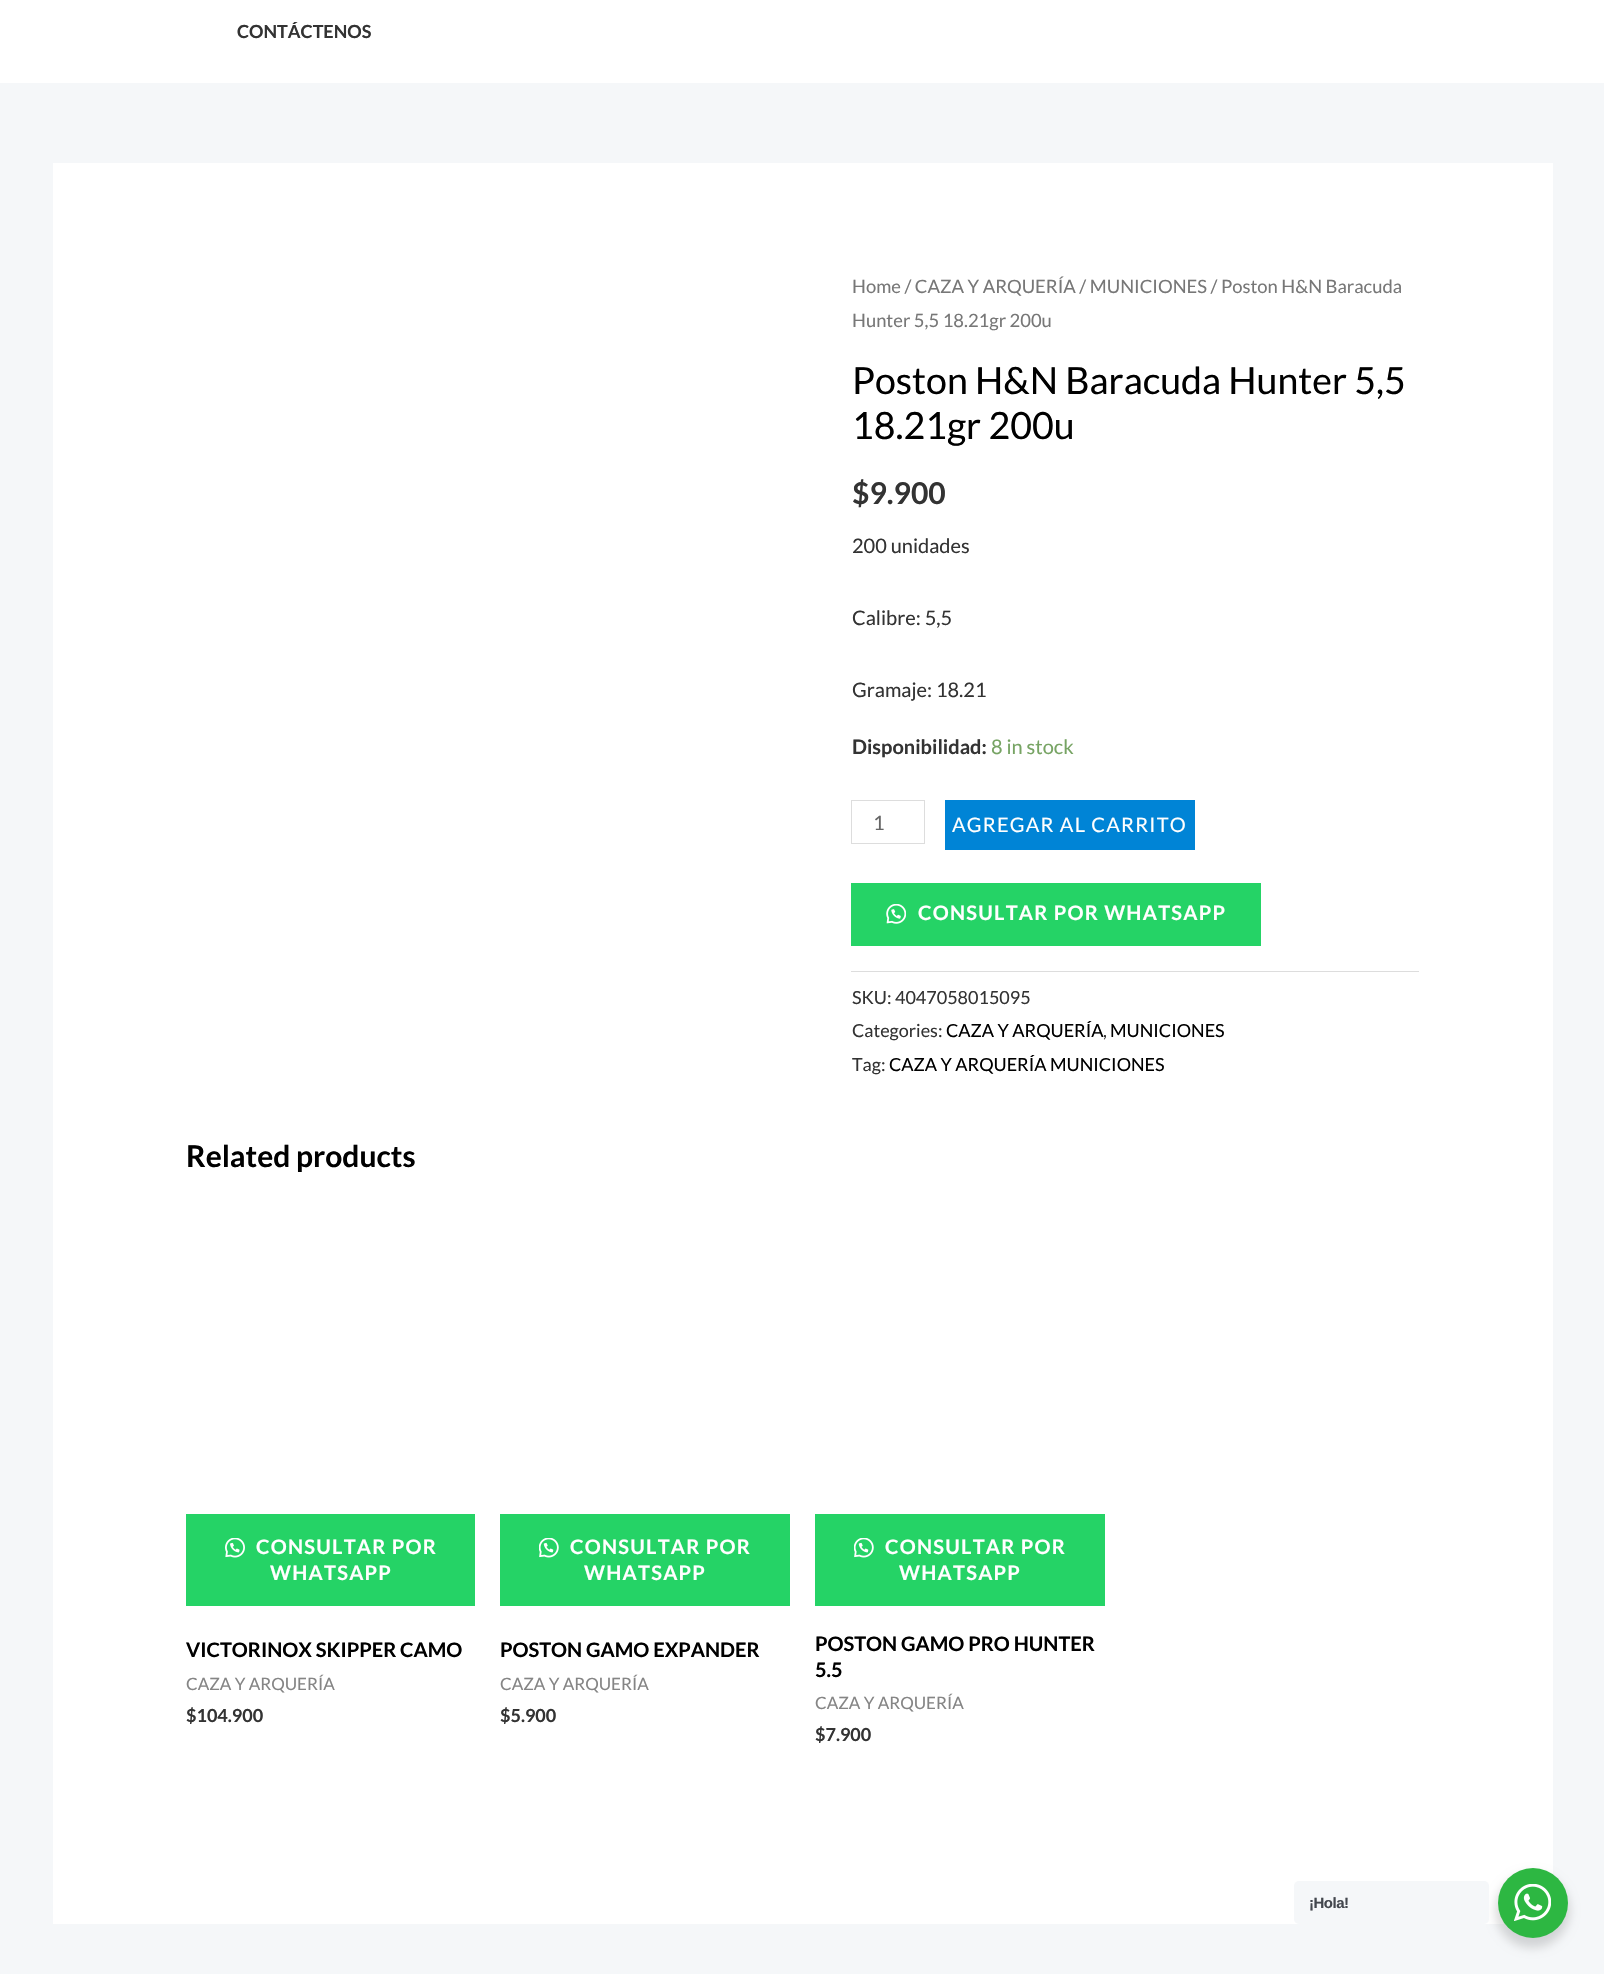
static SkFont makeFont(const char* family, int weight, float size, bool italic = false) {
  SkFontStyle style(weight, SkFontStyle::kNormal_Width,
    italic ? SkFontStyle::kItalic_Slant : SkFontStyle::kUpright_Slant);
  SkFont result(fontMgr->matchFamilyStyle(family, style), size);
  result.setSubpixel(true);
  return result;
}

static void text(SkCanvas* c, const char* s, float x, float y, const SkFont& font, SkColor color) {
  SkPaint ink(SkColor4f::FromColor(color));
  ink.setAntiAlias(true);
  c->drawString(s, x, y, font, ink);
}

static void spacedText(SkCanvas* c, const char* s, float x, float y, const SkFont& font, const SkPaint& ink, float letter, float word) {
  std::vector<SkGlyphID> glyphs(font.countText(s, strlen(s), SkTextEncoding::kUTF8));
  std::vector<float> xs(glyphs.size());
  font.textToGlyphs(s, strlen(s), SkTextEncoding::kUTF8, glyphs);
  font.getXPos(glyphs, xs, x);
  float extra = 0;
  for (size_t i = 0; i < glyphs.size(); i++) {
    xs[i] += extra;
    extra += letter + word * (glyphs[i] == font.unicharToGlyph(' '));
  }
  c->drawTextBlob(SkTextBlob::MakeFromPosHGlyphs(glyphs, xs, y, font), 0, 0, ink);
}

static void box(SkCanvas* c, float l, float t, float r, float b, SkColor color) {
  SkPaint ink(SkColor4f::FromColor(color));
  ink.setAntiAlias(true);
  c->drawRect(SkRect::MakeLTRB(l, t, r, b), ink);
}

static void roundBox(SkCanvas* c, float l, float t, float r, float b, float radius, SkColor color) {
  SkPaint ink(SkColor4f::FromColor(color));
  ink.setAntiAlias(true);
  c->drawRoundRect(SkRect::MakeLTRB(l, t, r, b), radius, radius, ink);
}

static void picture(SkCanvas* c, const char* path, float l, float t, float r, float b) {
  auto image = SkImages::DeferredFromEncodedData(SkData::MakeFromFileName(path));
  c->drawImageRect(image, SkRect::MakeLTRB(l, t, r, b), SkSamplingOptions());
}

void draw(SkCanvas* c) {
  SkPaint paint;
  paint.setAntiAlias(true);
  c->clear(0xfff5f7f9);
  box(c, 0, 0, 1604, 83, 0xffffffff);
  SkFont face1 = makeFont("Lato", 700, 18);
  text(c, "CONTÁCTENOS", 237, 38, face1, 0xff333333);
  box(c, 53, 163, 1553, 1924, 0xffffffff);
  SkFont face2 = makeFont("Lato", 400, 18.4f);
  text(c, "Home / CAZA Y ARQUERÍA / MUNICIONES / Poston H&N Baracuda", 852, 293, face2, 0xff777777);
  text(c, "Hunter 5,5 18.21gr 200u", 852, 327, face2, 0xff777777);
  SkFont face3 = makeFont("Lato", 400, 37.5f);
  text(c, "Poston H&N Baracuda Hunter 5,5", 852, 394, face3, 0xff000000);
  text(c, "18.21gr 200u", 852, 439, face3, 0xff000000);
  SkFont face4 = makeFont("Lato", 700, 30);
  text(c, "$9.900", 852, 504, face4, 0xff333333);
  SkFont face5 = makeFont("Lato", 400, 20);
  text(c, "200 unidades", 852, 553, face5, 0xff333333);
  text(c, "Calibre: 5,5", 852, 625, face5, 0xff333333);
  text(c, "Gramaje: 18.21", 852, 697, face5, 0xff333333);
  SkFont face6 = makeFont("Lato", 700, 20);
  text(c, "Disponibilidad:", 852, 754, face6, 0xff333333);
  text(c, "8 in stock", 991, 754, face5, 0xff77a464);
  paint.setStyle(SkPaint::kStroke_Style);
  paint.setStrokeWidth(1);
  paint.setColor(0xffdddddd);
  c->drawRect(SkRect::MakeLTRB(851.5f, 800.5f, 924.5f, 843.5f), paint);
  text(c, "1", 873, 830, face5, 0xff666666);
  box(c, 945, 800, 1195, 850, 0xff0084d6);
  paint.setStyle(SkPaint::kFill_Style);
  paint.setColor(0xffffffff);
  spacedText(c, "AGREGAR AL CARRITO", 952, 832, face5, paint, 1.25f, 0);
  box(c, 851, 883, 1261, 946, 0xff25d366);
  picture(c, "img_01.png", 886, 904, 906, 924);
  spacedText(c, "CONSULTAR POR WHATSAPP", 918, 920, face6, paint, 1.25f, 0);
  box(c, 851, 971, 1419, 972, 0xffdddddd);
  SkFont face7 = makeFont("Lato", 400, 18);
  text(c, "SKU: 4047058015095", 852, 1004, face7, 0xff333333);
  text(c, "Categories:", 852, 1037, face7, 0xff333333);
  text(c, "CAZA Y ARQUERÍA", 946, 1037, face7, 0xff000000);
  text(c, ",", 1103, 1037, face7, 0xff333333);
  text(c, "MUNICIONES", 1110, 1037, face7, 0xff000000);
  text(c, "Tag:", 852, 1071, face7, 0xff333333);
  text(c, "CAZA Y ARQUERÍA MUNICIONES", 889, 1071, face7, 0xff000000);
  text(c, "Related products", 186, 1167, face4, 0xff000000);
  box(c, 186, 1514, 475, 1606, 0xff25d366);
  picture(c, "img_02.png", 225, 1538, 245, 1558);
  spacedText(c, "CONSULTAR POR", 256, 1554, face6, paint, 1.25f, 0);
  spacedText(c, "WHATSAPP", 270, 1580, face6, paint, 1.25f, 0);
  text(c, "VICTORINOX SKIPPER CAMO", 186, 1657, face6, 0xff000000);
  SkFont face8 = makeFont("Lato", 400, 17);
  text(c, "CAZA Y ARQUERÍA", 186, 1690, face8, 0xff858585);
  text(c, "$104.900", 186, 1722, face1, 0xff333333);
  box(c, 500, 1514, 790, 1606, 0xff25d366);
  picture(c, "img_03.png", 539, 1538, 559, 1558);
  spacedText(c, "CONSULTAR POR", 570, 1554, face6, paint, 1.25f, 0);
  spacedText(c, "WHATSAPP", 584, 1580, face6, paint, 1.25f, 0);
  text(c, "POSTON GAMO EXPANDER", 500, 1657, face6, 0xff000000);
  text(c, "CAZA Y ARQUERÍA", 500, 1690, face8, 0xff858585);
  text(c, "$5.900", 500, 1722, face1, 0xff333333);
  box(c, 815, 1514, 1105, 1606, 0xff25d366);
  picture(c, "img_03.png", 854, 1538, 874, 1558);
  spacedText(c, "CONSULTAR POR", 885, 1554, face6, paint, 1.25f, 0);
  spacedText(c, "WHATSAPP", 899, 1580, face6, paint, 1.25f, 0);
  text(c, "POSTON GAMO PRO HUNTER", 815, 1651, face6, 0xff000000);
  text(c, "5.5", 815, 1677, face6, 0xff000000);
  text(c, "CAZA Y ARQUERÍA", 815, 1709, face8, 0xff858585);
  text(c, "$7.900", 815, 1741, face1, 0xff333333);
  paint.setColor(0x24000000);
  paint.setMaskFilter(SkMaskFilter::MakeBlur(kNormal_SkBlurStyle, 5));
  c->drawRoundRect(SkRect::MakeLTRB(1495, 1873, 1570, 1948), 37.5f, 37.5f, paint);
  paint.setMaskFilter(nullptr);
  roundBox(c, 1294, 1881, 1489, 1924, 5, 0xfff5f7f9);
  SkFont face9 = makeFont("Liberation Sans", 700, 15);
  paint.setColor(0xff43474e);
  spacedText(c, "¡Hola!", 1309, 1908, face9, paint, -0.5f, 0);
  paint.setColor(0xff2db742);
  c->drawCircle(1533, 1903, 35, paint);
  picture(c, "img_04.png", 1514, 1884, 1551, 1921);
}
